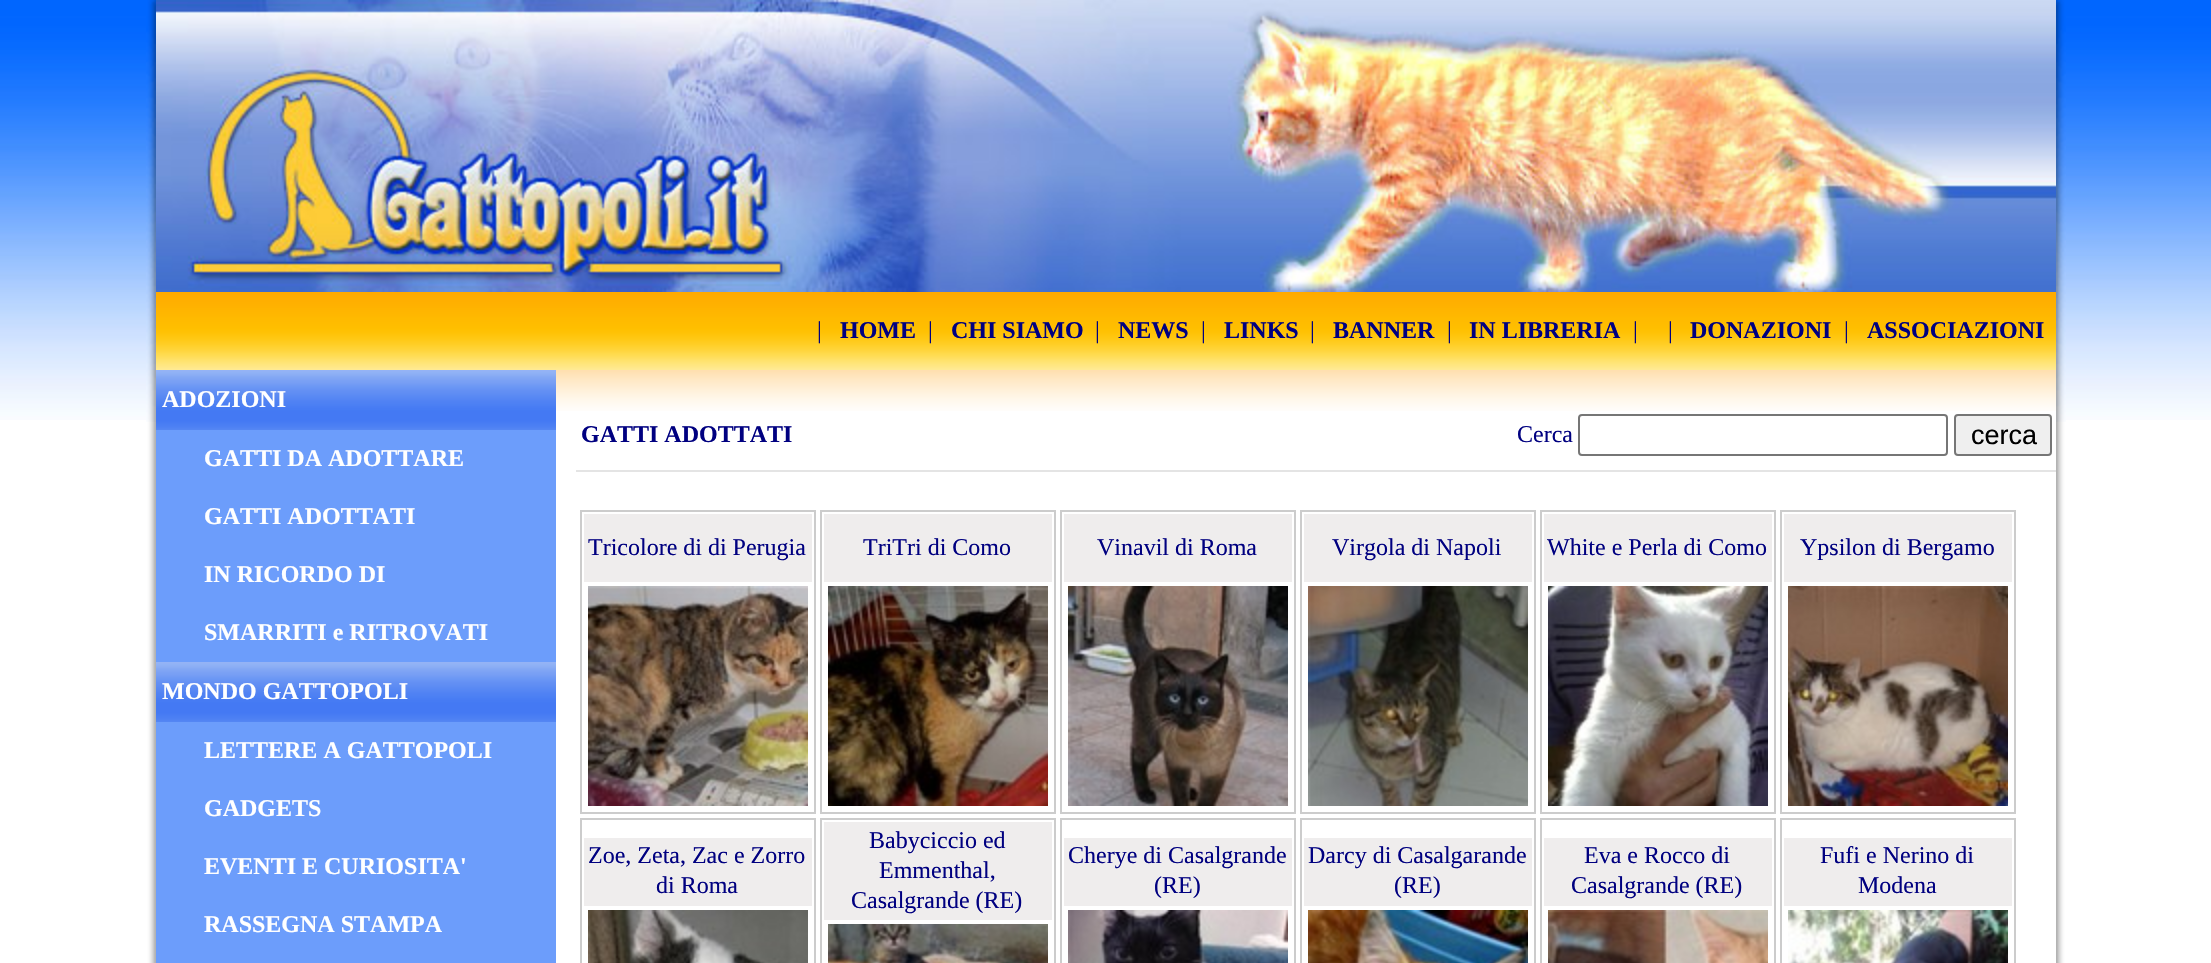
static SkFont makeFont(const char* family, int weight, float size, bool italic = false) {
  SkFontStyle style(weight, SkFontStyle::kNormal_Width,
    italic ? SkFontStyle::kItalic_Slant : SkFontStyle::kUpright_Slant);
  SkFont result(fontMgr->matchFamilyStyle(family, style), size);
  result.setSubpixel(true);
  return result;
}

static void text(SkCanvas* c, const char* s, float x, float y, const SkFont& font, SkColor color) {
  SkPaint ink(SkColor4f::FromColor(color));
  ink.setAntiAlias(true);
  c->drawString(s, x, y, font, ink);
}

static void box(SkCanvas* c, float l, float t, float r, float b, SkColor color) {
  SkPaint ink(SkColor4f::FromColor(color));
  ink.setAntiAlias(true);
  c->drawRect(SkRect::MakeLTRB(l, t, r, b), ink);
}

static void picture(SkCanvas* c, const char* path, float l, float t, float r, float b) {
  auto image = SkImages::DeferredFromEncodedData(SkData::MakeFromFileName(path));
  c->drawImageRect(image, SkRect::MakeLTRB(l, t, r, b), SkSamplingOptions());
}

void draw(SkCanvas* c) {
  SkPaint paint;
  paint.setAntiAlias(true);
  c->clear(0xffffffff);
  picture(c, "img_01.png", 0, 0, 2211, 420);
  picture(c, "img_02.png", 146, 422, 156, 963);
  picture(c, "img_03.png", 146, 0, 156, 422);
  picture(c, "img_04.png", 156, 0, 2056, 292);
  picture(c, "img_05.png", 2056, 422, 2066, 963);
  picture(c, "img_06.png", 2056, 0, 2066, 422);
  picture(c, "img_07.png", 156, 292, 2056, 370);
  SkFont face1 = makeFont("Liberation Serif", 400, 24);
  text(c, "|", 817, 338, face1, 0xff000080);
  SkFont face2 = makeFont("Liberation Serif", 700, 24);
  text(c, "HOME", 840, 338, face2, 0xff000080);
  text(c, "|", 928, 338, face1, 0xff000080);
  text(c, "CHI SIAMO", 951, 338, face2, 0xff000080);
  text(c, "|", 1095, 338, face1, 0xff000080);
  text(c, "NEWS", 1118, 338, face2, 0xff000080);
  text(c, "|", 1201, 338, face1, 0xff000080);
  text(c, "LINKS", 1224, 338, face2, 0xff000080);
  text(c, "|", 1310, 338, face1, 0xff000080);
  text(c, "BANNER", 1333, 338, face2, 0xff000080);
  text(c, "|", 1447, 338, face1, 0xff000080);
  text(c, "IN LIBRERIA", 1469, 338, face2, 0xff000080);
  text(c, "|", 1633, 338, face1, 0xff000080);
  text(c, "|", 1668, 338, face1, 0xff000080);
  text(c, "DONAZIONI", 1690, 338, face2, 0xff000080);
  text(c, "|", 1844, 338, face1, 0xff000080);
  text(c, "ASSOCIAZIONI", 1867, 338, face2, 0xff000080);
  box(c, 556, 411, 2056, 420, 0xffffffff);
  picture(c, "img_08.png", 556, 370, 2056, 411);
  box(c, 156, 430, 556, 963, 0xff6c9dfb);
  picture(c, "img_09.png", 156, 370, 556, 430);
  text(c, "ADOZIONI", 162, 407, face2, 0xffffffff);
  text(c, "GATTI DA ADOTTARE", 204, 466, face2, 0xffffffff);
  text(c, "GATTI ADOTTATI", 204, 524, face2, 0xffffffff);
  text(c, "IN RICORDO DI", 204, 582, face2, 0xffffffff);
  text(c, "SMARRITI e RITROVATI", 204, 640, face2, 0xffffffff);
  picture(c, "img_09.png", 156, 662, 556, 722);
  text(c, "MONDO GATTOPOLI", 162, 699, face2, 0xffffffff);
  text(c, "LETTERE A GATTOPOLI", 204, 758, face2, 0xffffffff);
  text(c, "GADGETS", 204, 816, face2, 0xffffffff);
  text(c, "EVENTI E CURIOSITA'", 204, 874, face2, 0xffffffff);
  text(c, "RASSEGNA STAMPA", 204, 932, face2, 0xffffffff);
  text(c, "GATTI ADOTTATI", 581, 442, face2, 0xff000080);
  text(c, "Cerca", 1517, 442, face1, 0xff000080);
  paint.setStyle(SkPaint::kStroke_Style);
  paint.setStrokeWidth(2);
  paint.setColor(0xff767676);
  c->drawRoundRect(SkRect::MakeLTRB(1579, 415, 1947, 455), 3, 3, paint);
  paint.setStyle(SkPaint::kFill_Style);
  paint.setColor(0xffefefef);
  c->drawRoundRect(SkRect::MakeLTRB(1955, 415, 2051, 455), 3, 3, paint);
  paint.setStyle(SkPaint::kStroke_Style);
  paint.setColor(0xff767676);
  c->drawRoundRect(SkRect::MakeLTRB(1955, 415, 2051, 455), 3, 3, paint);
  SkFont face3 = makeFont("Liberation Sans", 400, 27);
  text(c, "cerca", 1971, 444, face3, 0xff000000);
  box(c, 576, 470, 2056, 472, 0xffe4e4e4);
  paint.setColor(0xffcccccc);
  c->drawRect(SkRect::MakeLTRB(581, 511, 815, 813), paint);
  box(c, 584, 514, 812, 582, 0xffefeded);
  text(c, "Tricolore di di Perugia", 588, 555, face1, 0xff000080);
  picture(c, "img_10.png", 588, 586, 808, 806);
  c->drawRect(SkRect::MakeLTRB(821, 511, 1055, 813), paint);
  box(c, 824, 514, 1052, 582, 0xffefeded);
  text(c, "TriTri di Como", 863, 555, face1, 0xff000080);
  picture(c, "img_11.png", 828, 586, 1048, 806);
  c->drawRect(SkRect::MakeLTRB(1061, 511, 1295, 813), paint);
  box(c, 1064, 514, 1292, 582, 0xffefeded);
  text(c, "Vinavil di Roma", 1097, 555, face1, 0xff000080);
  picture(c, "img_12.png", 1068, 586, 1288, 806);
  c->drawRect(SkRect::MakeLTRB(1301, 511, 1535, 813), paint);
  box(c, 1304, 514, 1532, 582, 0xffefeded);
  text(c, "Virgola di Napoli", 1332, 555, face1, 0xff000080);
  picture(c, "img_13.png", 1308, 586, 1528, 806);
  c->drawRect(SkRect::MakeLTRB(1541, 511, 1775, 813), paint);
  box(c, 1544, 514, 1772, 582, 0xffefeded);
  text(c, "White e Perla di Como", 1547, 555, face1, 0xff000080);
  picture(c, "img_14.png", 1548, 586, 1768, 806);
  c->drawRect(SkRect::MakeLTRB(1781, 511, 2015, 813), paint);
  box(c, 1784, 514, 2012, 582, 0xffefeded);
  text(c, "Ypsilon di Bergamo", 1800, 555, face1, 0xff000080);
  picture(c, "img_15.png", 1788, 586, 2008, 806);
  c->drawRect(SkRect::MakeLTRB(581, 819, 815, 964), paint);
  box(c, 584, 838, 812, 906, 0xffefeded);
  text(c, "Zoe, Zeta, Zac e Zorro", 588, 863, face1, 0xff000080);
  text(c, "di Roma", 656, 893, face1, 0xff000080);
  picture(c, "img_16.png", 588, 910, 808, 963);
  c->drawRect(SkRect::MakeLTRB(821, 819, 1055, 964), paint);
  box(c, 824, 822, 1052, 920, 0xffefeded);
  text(c, "Babyciccio ed", 869, 848, face1, 0xff000080);
  text(c, "Emmenthal,", 879, 878, face1, 0xff000080);
  text(c, "Casalgrande (RE)", 851, 908, face1, 0xff000080);
  picture(c, "img_17.png", 828, 924, 1048, 963);
  c->drawRect(SkRect::MakeLTRB(1061, 819, 1295, 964), paint);
  box(c, 1064, 838, 1292, 906, 0xffefeded);
  text(c, "Cherye di Casalgrande", 1068, 863, face1, 0xff000080);
  text(c, "(RE)", 1154, 893, face1, 0xff000080);
  picture(c, "img_18.png", 1068, 910, 1288, 963);
  c->drawRect(SkRect::MakeLTRB(1301, 819, 1535, 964), paint);
  box(c, 1304, 838, 1532, 906, 0xffefeded);
  text(c, "Darcy di Casalgarande", 1308, 863, face1, 0xff000080);
  text(c, "(RE)", 1394, 893, face1, 0xff000080);
  picture(c, "img_19.png", 1308, 910, 1528, 963);
  c->drawRect(SkRect::MakeLTRB(1541, 819, 1775, 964), paint);
  box(c, 1544, 838, 1772, 906, 0xffefeded);
  text(c, "Eva e Rocco di", 1584, 863, face1, 0xff000080);
  text(c, "Casalgrande (RE)", 1571, 893, face1, 0xff000080);
  picture(c, "img_20.png", 1548, 910, 1768, 963);
  c->drawRect(SkRect::MakeLTRB(1781, 819, 2015, 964), paint);
  box(c, 1784, 838, 2012, 906, 0xffefeded);
  text(c, "Fufi e Nerino di", 1820, 863, face1, 0xff000080);
  text(c, "Modena", 1858, 893, face1, 0xff000080);
  picture(c, "img_21.png", 1788, 910, 2008, 963);
}
